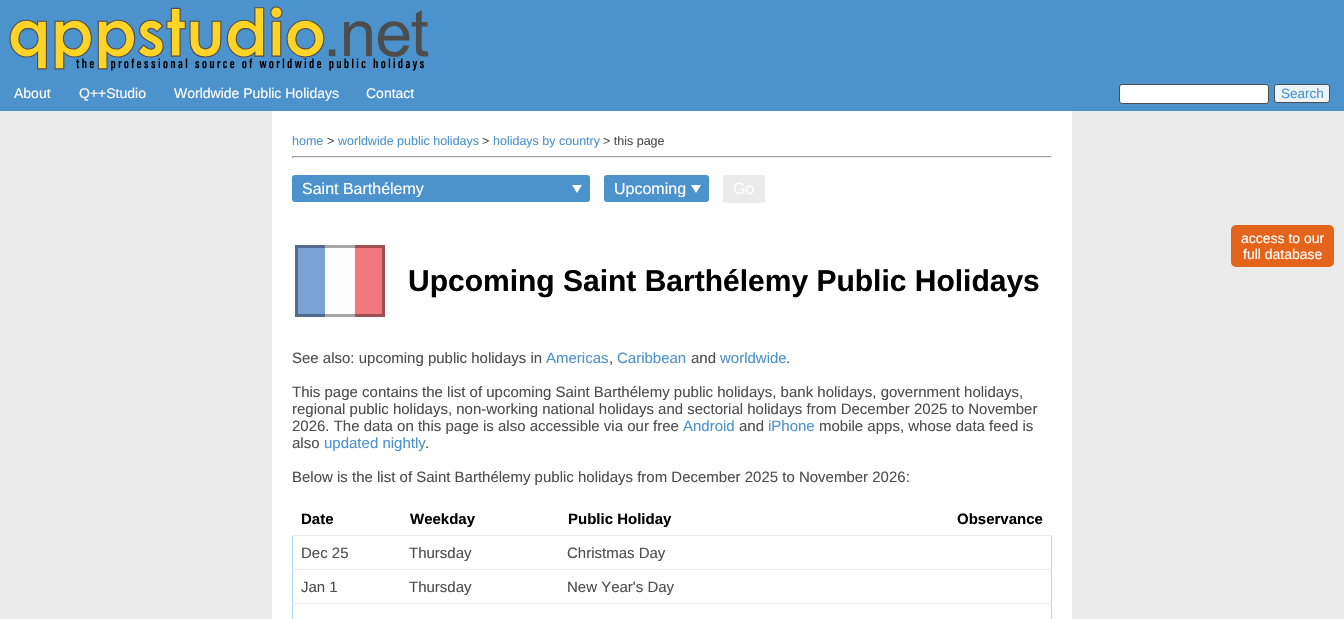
static SkFont makeFont(const char* family, int weight, float size, bool italic = false) {
  SkFontStyle style(weight, SkFontStyle::kNormal_Width,
    italic ? SkFontStyle::kItalic_Slant : SkFontStyle::kUpright_Slant);
  SkFont result(fontMgr->matchFamilyStyle(family, style), size);
  result.setSubpixel(true);
  return result;
}

static void text(SkCanvas* c, const char* s, float x, float y, const SkFont& font, SkColor color) {
  SkPaint ink(SkColor4f::FromColor(color));
  ink.setAntiAlias(true);
  c->drawString(s, x, y, font, ink);
}

static void box(SkCanvas* c, float l, float t, float r, float b, SkColor color) {
  SkPaint ink(SkColor4f::FromColor(color));
  ink.setAntiAlias(true);
  c->drawRect(SkRect::MakeLTRB(l, t, r, b), ink);
}

static void roundBox(SkCanvas* c, float l, float t, float r, float b, float radius, SkColor color) {
  SkPaint ink(SkColor4f::FromColor(color));
  ink.setAntiAlias(true);
  c->drawRoundRect(SkRect::MakeLTRB(l, t, r, b), radius, radius, ink);
}

static void picture(SkCanvas* c, const char* path, float l, float t, float r, float b) {
  auto image = SkImages::DeferredFromEncodedData(SkData::MakeFromFileName(path));
  c->drawImageRect(image, SkRect::MakeLTRB(l, t, r, b), SkSamplingOptions());
}

void draw(SkCanvas* c) {
  SkPaint paint;
  paint.setAntiAlias(true);
  c->clear(0xffebebeb);
  box(c, 0, 0, 1344, 111, 0xff4c92cd);
  picture(c, "img_01.png", 9, 6, 429, 71);
  SkFont face1 = makeFont("Liberation Sans", 400, 14);
  text(c, "About", 14, 98, face1, 0xffffffff);
  text(c, "Q++Studio", 79, 98, face1, 0xffffffff);
  text(c, "Worldwide Public Holidays", 174, 98, face1, 0xffffffff);
  text(c, "Contact", 366, 98, face1, 0xffffffff);
  paint.setColor(0xffffffff);
  c->drawRoundRect(SkRect::MakeLTRB(1119.5f, 84.5f, 1268.5f, 103.5f), 2.5f, 2.5f, paint);
  paint.setStyle(SkPaint::kStroke_Style);
  paint.setStrokeWidth(1);
  paint.setColor(0xff4d4d4d);
  c->drawRoundRect(SkRect::MakeLTRB(1119.5f, 84.5f, 1268.5f, 103.5f), 2.5f, 2.5f, paint);
  paint.setStyle(SkPaint::kFill_Style);
  paint.setColor(0xffeaf4f9);
  c->drawRoundRect(SkRect::MakeLTRB(1274.5f, 84.5f, 1329.5f, 102.5f), 2.5f, 2.5f, paint);
  paint.setStyle(SkPaint::kStroke_Style);
  paint.setColor(0xff4d4d4d);
  c->drawRoundRect(SkRect::MakeLTRB(1274.5f, 84.5f, 1329.5f, 102.5f), 2.5f, 2.5f, paint);
  SkFont face2 = makeFont("Liberation Sans", 400, 13.5f);
  text(c, "Search", 1281, 98, face2, 0xff4c92cd);
  box(c, 272, 111, 1072, 619, 0xffffffff);
  SkFont face3 = makeFont("Liberation Sans", 400, 12.5f);
  text(c, "home", 292, 145, face3, 0xff4c92cd);
  text(c, ">", 327, 145, face3, 0xff4d4d4d);
  text(c, "worldwide public holidays", 338, 145, face3, 0xff4c92cd);
  text(c, ">", 482, 145, face3, 0xff4d4d4d);
  text(c, "holidays by country", 493, 145, face3, 0xff4c92cd);
  text(c, "> this page", 603, 145, face3, 0xff4d4d4d);
  box(c, 292, 156, 1052, 157, 0xff9f9f9f);
  box(c, 1051, 156, 1052, 158, 0xffeeeeee);
  box(c, 292, 157, 1052, 158, 0xffeeeeee);
  box(c, 292, 156, 293, 158, 0xff9f9f9f);
  roundBox(c, 292, 175, 590, 202, 3, 0xff4c92cd);
  paint.setStyle(SkPaint::kFill_Style);
  paint.setColor(0xffffffff);
  c->drawPath(SkPathBuilder().moveTo(577, 193).lineTo(572, 185).lineTo(582, 185).close().detach(), paint);
  c->save();
  c->clipRect(SkRect::MakeLTRB(302, 180, 568, 197));
  SkFont face4 = makeFont("Liberation Sans", 400, 16);
  text(c, "Saint Barthélemy", 302, 194, face4, 0xffffffff);
  c->restore();
  roundBox(c, 604, 175, 709, 202, 3, 0xff4c92cd);
  c->drawPath(SkPathBuilder().moveTo(696, 193).lineTo(691, 185).lineTo(701, 185).close().detach(), paint);
  c->save();
  c->clipRect(SkRect::MakeLTRB(614, 180, 687, 197));
  text(c, "Upcoming", 614, 194, face4, 0xffffffff);
  c->restore();
  roundBox(c, 723, 175, 765, 203, 3, 0xffebebeb);
  text(c, "Go", 733, 194, face4, 0xffffffff);
  roundBox(c, 1231, 225, 1334, 267, 5, 0xffe4641c);
  text(c, "access to our", 1241, 243, face1, 0xffffffff);
  text(c, "full database", 1243, 259, face1, 0xffffffff);
  picture(c, "img_02.png", 295, 245, 385, 317);
  SkFont face5 = makeFont("Liberation Sans", 700, 30);
  text(c, "Upcoming Saint Barthélemy Public Holidays", 408, 291, face5, 0xff000000);
  SkFont face6 = makeFont("Liberation Sans", 400, 15);
  text(c, "See also: upcoming public holidays in", 292, 363, face6, 0xff4d4d4d);
  text(c, "Americas", 546, 363, face6, 0xff4c92cd);
  text(c, ",", 609, 363, face6, 0xff4d4d4d);
  text(c, "Caribbean", 617, 363, face6, 0xff4c92cd);
  text(c, "and", 691, 363, face6, 0xff4d4d4d);
  text(c, "worldwide", 720, 363, face6, 0xff4c92cd);
  text(c, ".", 786, 363, face6, 0xff4d4d4d);
  text(c, "This page contains the list of upcoming Saint Barthélemy public holidays, bank holidays, government holidays,", 292, 397, face6, 0xff4d4d4d);
  text(c, "regional public holidays, non-working national holidays and sectorial holidays from December 2025 to November", 292, 414, face6, 0xff4d4d4d);
  text(c, "2026. The data on this page is also accessible via our free", 292, 431, face6, 0xff4d4d4d);
  text(c, "Android", 683, 431, face6, 0xff4c92cd);
  text(c, "and", 739, 431, face6, 0xff4d4d4d);
  text(c, "iPhone", 768, 431, face6, 0xff4c92cd);
  text(c, "mobile apps, whose data feed is", 819, 431, face6, 0xff4d4d4d);
  text(c, "also", 292, 448, face6, 0xff4d4d4d);
  text(c, "updated nightly", 324, 448, face6, 0xff4c92cd);
  text(c, ".", 425, 448, face6, 0xff4d4d4d);
  text(c, "Below is the list of Saint Barthélemy public holidays from December 2025 to November 2026:", 292, 482, face6, 0xff4d4d4d);
  box(c, 1051, 536, 1052, 619, 0xffb5d6f7);
  box(c, 292, 536, 293, 619, 0xffb5d6f7);
  box(c, 881, 535, 1052, 536, 0xffebebeb);
  box(c, 881, 535, 882, 536, 0xffffffff);
  box(c, 559, 535, 882, 536, 0xffebebeb);
  box(c, 559, 535, 560, 536, 0xffffffff);
  box(c, 401, 535, 560, 536, 0xffebebeb);
  box(c, 401, 535, 402, 536, 0xffffffff);
  box(c, 292, 535, 402, 536, 0xffebebeb);
  box(c, 292, 535, 293, 536, 0xffffffff);
  SkFont face7 = makeFont("Liberation Sans", 700, 15);
  text(c, "Date", 301, 524, face7, 0xff000000);
  text(c, "Weekday", 410, 524, face7, 0xff000000);
  text(c, "Public Holiday", 568, 524, face7, 0xff000000);
  text(c, "Observance", 957, 524, face7, 0xff000000);
  text(c, "Dec 25", 301, 558, face6, 0xff4d4d4d);
  text(c, "Thursday", 409, 558, face6, 0xff4d4d4d);
  text(c, "Christmas Day", 567, 558, face6, 0xff4d4d4d);
  box(c, 292, 569, 1052, 570, 0xffebebeb);
  text(c, "Jan 1", 301, 592, face6, 0xff4d4d4d);
  text(c, "Thursday", 409, 592, face6, 0xff4d4d4d);
  text(c, "New Year's Day", 567, 592, face6, 0xff4d4d4d);
  box(c, 292, 603, 1052, 604, 0xffebebeb);
}
